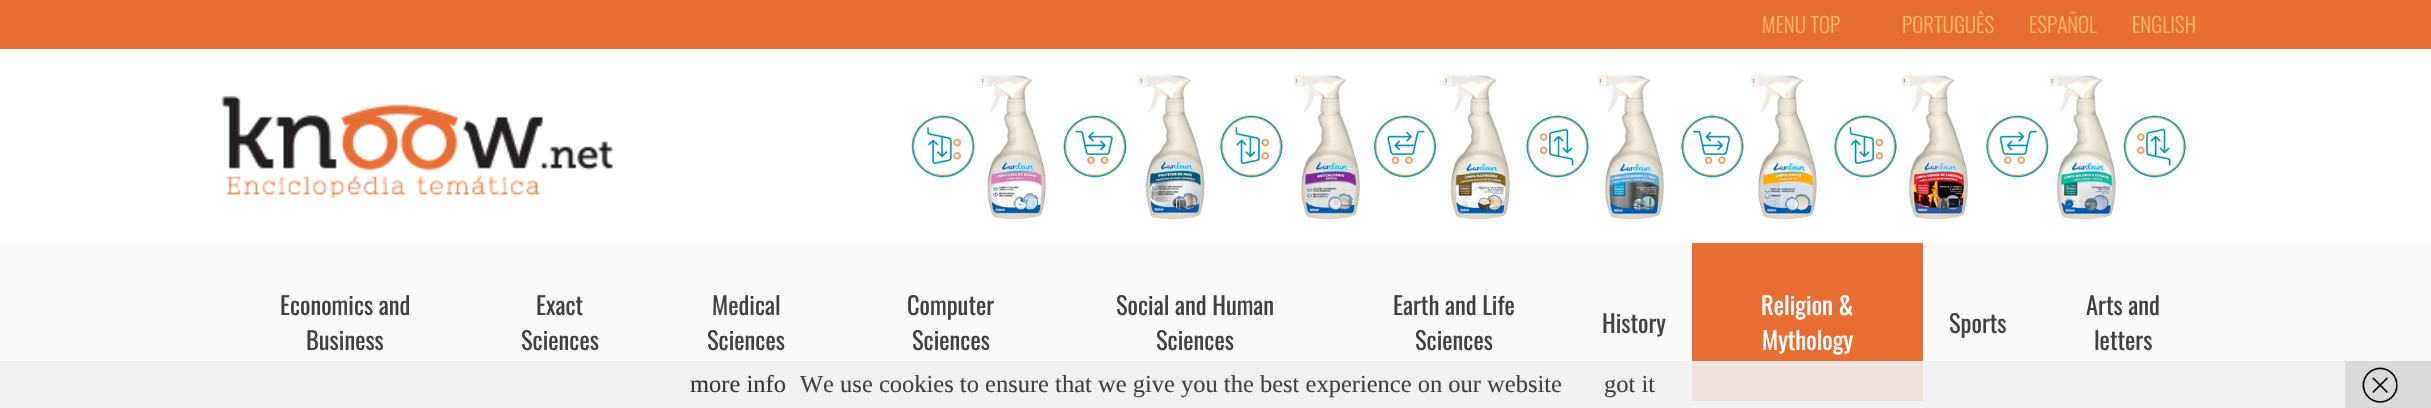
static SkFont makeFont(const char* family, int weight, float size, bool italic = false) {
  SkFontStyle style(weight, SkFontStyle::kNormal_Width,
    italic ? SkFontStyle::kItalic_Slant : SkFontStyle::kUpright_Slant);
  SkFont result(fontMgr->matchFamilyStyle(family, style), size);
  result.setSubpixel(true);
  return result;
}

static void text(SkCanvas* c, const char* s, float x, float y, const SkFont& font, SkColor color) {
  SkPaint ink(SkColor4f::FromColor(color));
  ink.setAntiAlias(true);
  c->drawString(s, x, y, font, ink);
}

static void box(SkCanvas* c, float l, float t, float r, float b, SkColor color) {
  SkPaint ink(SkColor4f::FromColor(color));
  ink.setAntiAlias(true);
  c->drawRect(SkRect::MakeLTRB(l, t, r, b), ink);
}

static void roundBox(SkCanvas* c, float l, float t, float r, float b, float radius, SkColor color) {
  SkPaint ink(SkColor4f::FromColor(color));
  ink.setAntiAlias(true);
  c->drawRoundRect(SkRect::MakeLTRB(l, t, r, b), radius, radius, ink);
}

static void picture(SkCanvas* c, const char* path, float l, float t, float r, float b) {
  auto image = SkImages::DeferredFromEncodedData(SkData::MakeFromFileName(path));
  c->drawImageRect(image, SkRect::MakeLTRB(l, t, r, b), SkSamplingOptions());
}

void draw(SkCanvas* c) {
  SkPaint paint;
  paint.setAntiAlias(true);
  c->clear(0xffffffff);
  box(c, 0, 0, 2431, 49, 0xffe76e34);
  SkFont face1 = makeFont("Oswald", 300, 21);
  text(c, "MENU TOP", 1762, 33, face1, 0xfffeb963);
  text(c, "PORTUGUÊS", 1902, 33, face1, 0xfffeb963);
  text(c, "ESPAÑOL", 2029, 33, face1, 0xfffeb963);
  text(c, "ENGLISH", 2132, 33, face1, 0xfffeb963);
  picture(c, "img_01.png", 221, 95, 613, 198);
  picture(c, "img_02.png", 911, 75, 2186, 220);
  roundBox(c, 0, 242, 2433, 403, 7, 0xfffafafa);
  SkFont face2 = makeFont("Oswald", 400, 24.5f);
  text(c, "Economics and", 280, 315, face2, 0xff404040);
  text(c, "Business", 306, 350, face2, 0xff404040);
  text(c, "Exact", 536, 315, face2, 0xff404040);
  text(c, "Sciences", 521, 350, face2, 0xff404040);
  text(c, "Medical", 712, 315, face2, 0xff404040);
  text(c, "Sciences", 707, 350, face2, 0xff404040);
  text(c, "Computer", 907, 315, face2, 0xff404040);
  text(c, "Sciences", 912, 350, face2, 0xff404040);
  text(c, "Social and Human", 1116, 315, face2, 0xff404040);
  text(c, "Sciences", 1156, 350, face2, 0xff404040);
  text(c, "Earth and Life", 1393, 315, face2, 0xff404040);
  text(c, "Sciences", 1415, 350, face2, 0xff404040);
  text(c, "History", 1602, 333, face2, 0xff404040);
  box(c, 1692, 243, 1923, 401, 0xffe76e34);
  text(c, "Religion &", 1761, 315, face2, 0xffffffff);
  text(c, "Mythology", 1762, 350, face2, 0xffffffff);
  text(c, "Sports", 1949, 333, face2, 0xff404040);
  text(c, "Arts and", 2086, 315, face2, 0xff404040);
  text(c, "letters", 2094, 350, face2, 0xff404040);
  box(c, 0, 361, 2345, 408, 0xe6eeeeee);
  SkFont face3 = makeFont("Liberation Serif", 400, 24.5f);
  text(c, "more info", 690, 392, face3, 0xff333333);
  text(c, "We use cookies to ensure that we give you the best experience on our website", 800, 392, face3, 0xff404040);
  text(c, "got it", 1604, 392, face3, 0xff404040);
  box(c, 2345, 361, 2431, 408, 0xffdadada);
  picture(c, "img_03.png", 2362, 367, 2398, 403);
}
